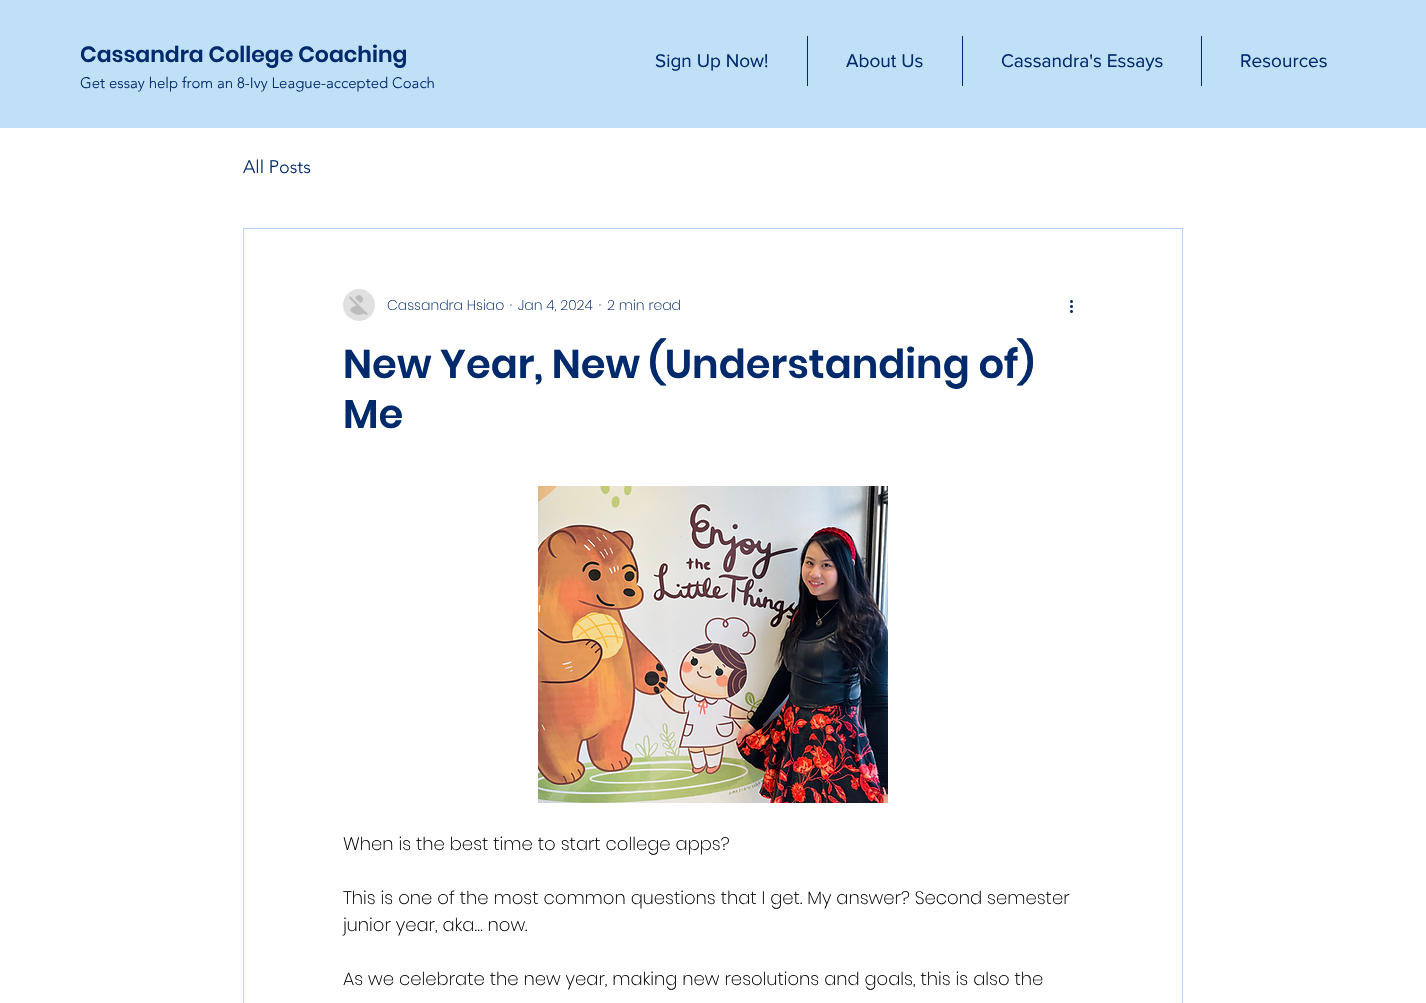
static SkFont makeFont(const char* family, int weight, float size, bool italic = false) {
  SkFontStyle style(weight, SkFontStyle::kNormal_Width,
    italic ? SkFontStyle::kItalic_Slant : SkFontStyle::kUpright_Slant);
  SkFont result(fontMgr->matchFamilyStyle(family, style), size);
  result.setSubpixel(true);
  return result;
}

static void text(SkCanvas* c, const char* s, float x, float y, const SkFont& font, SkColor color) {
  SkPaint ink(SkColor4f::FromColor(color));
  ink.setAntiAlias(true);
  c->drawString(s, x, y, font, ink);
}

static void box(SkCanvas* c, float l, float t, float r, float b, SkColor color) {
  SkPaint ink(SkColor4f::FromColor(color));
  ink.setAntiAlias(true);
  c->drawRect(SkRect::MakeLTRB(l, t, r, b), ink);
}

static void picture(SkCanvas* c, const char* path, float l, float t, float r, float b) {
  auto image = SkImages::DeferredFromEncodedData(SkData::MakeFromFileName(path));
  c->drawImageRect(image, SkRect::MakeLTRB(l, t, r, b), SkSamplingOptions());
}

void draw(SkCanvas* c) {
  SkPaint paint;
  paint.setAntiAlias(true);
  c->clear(0xffffffff);
  box(c, 0, 0, 1426, 128, 0xffbfe0f7);
  SkFont face1 = makeFont("Poppins", 600, 22);
  text(c, "Cassandra College Coaching", 80, 62, face1, 0xff002a6c);
  SkFont face2 = makeFont("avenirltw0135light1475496", 300, 15);
  text(c, "Get essay help from an 8-Ivy League-accepted Coach", 80, 88, face2, 0xff002a6c);
  SkFont face3 = makeFont("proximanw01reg", 400, 19);
  text(c, "Sign Up Now!", 655, 67, face3, 0xff002a6c);
  box(c, 807, 36, 808, 86, 0xff002a6c);
  text(c, "About Us", 846, 67, face3, 0xff002a6c);
  box(c, 962, 36, 963, 86, 0xff002a6c);
  text(c, "Cassandra's Essays", 1001, 67, face3, 0xff002a6c);
  box(c, 1201, 36, 1202, 86, 0xff002a6c);
  text(c, "Resources", 1240, 67, face3, 0xff002a6c);
  SkFont face4 = makeFont("avenirltw0135light1475496", 300, 18);
  text(c, "All Posts", 243, 173, face4, 0xff002a6c);
  paint.setStyle(SkPaint::kStroke_Style);
  paint.setStrokeWidth(1);
  paint.setColor(0xffb4d1ff);
  c->drawRect(SkRect::MakeLTRB(243.5f, 228.5f, 1182.5f, 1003.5f), paint);
  picture(c, "img_01.png", 343, 289, 375, 321);
  SkFont face5 = makeFont("Poppins", 200, 14);
  text(c, "Cassandra Hsiao", 387, 310, face5, 0xff002a6c);
  text(c, "·", 510, 310, face5, 0xff002a6c);
  text(c, "Jan 4, 2024", 518, 310, face5, 0xff002a6c);
  text(c, "·", 599, 310, face5, 0xff002a6c);
  text(c, "2 min read", 607, 310, face5, 0xff002a6c);
  picture(c, "img_02.png", 1070, 300, 1073, 313);
  SkFont face6 = makeFont("Poppins", 600, 40);
  text(c, "New Year, New (Understanding of)", 343, 378, face6, 0xff002a6c);
  text(c, "Me", 343, 428, face6, 0xff002a6c);
  picture(c, "img_03.png", 538, 486, 888, 803);
  SkFont face7 = makeFont("Poppins", 200, 18);
  text(c, "When is the best time to start college apps?", 343, 850, face7, 0xff000000);
  text(c, "This is one of the most common questions that I get. My answer? Second semester", 343, 904, face7, 0xff000000);
  text(c, "junior year, aka… now.", 343, 931, face7, 0xff000000);
  text(c, "As we celebrate the new year, making new resolutions and goals, this is also the", 343, 985, face7, 0xff000000);
}
